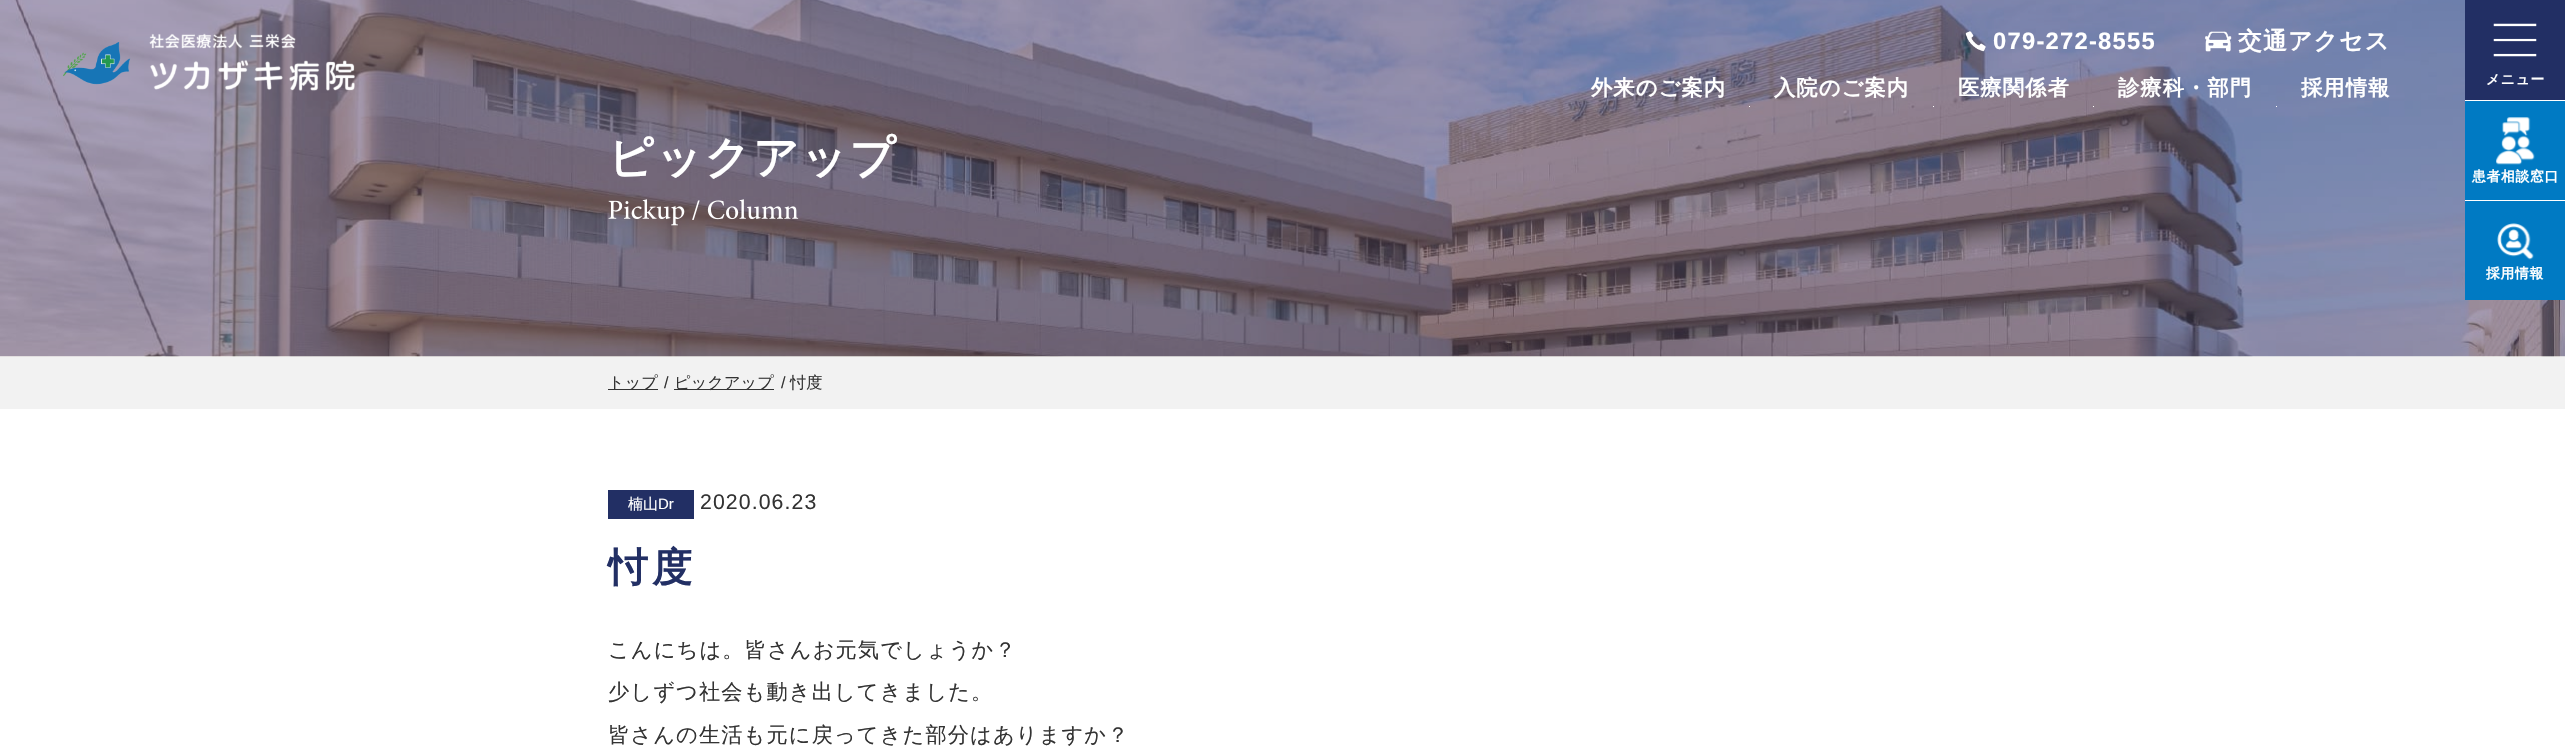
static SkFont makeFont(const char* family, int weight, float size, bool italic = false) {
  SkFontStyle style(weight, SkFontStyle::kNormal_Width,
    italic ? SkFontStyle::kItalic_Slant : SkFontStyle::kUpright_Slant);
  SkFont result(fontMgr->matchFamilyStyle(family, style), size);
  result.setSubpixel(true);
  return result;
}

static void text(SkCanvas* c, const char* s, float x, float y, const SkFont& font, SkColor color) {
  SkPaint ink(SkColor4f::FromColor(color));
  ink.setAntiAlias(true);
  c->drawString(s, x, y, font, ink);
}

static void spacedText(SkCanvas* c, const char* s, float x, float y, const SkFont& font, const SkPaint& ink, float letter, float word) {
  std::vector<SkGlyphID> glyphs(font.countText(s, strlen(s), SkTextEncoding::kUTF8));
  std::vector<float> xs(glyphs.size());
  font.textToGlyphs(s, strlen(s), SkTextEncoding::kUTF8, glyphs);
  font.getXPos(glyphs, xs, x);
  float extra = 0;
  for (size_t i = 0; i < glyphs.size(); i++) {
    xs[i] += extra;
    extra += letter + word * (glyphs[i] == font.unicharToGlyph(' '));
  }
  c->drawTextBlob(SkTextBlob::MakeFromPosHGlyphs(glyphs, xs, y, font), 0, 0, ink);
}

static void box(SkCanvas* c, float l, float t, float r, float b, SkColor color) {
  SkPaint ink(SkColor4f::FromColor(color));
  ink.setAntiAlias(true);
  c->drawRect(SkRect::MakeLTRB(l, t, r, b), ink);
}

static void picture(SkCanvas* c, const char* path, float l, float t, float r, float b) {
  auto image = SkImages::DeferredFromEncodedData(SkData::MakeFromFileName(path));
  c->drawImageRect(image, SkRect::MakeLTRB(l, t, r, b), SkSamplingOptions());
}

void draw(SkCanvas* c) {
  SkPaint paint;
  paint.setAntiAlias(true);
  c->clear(0xffffffff);
  box(c, 0, 356, 2565, 409, 0xfff2f2f2);
  picture(c, "img_01.png", 0, 0, 2565, 357);
  SkFont face1 = makeFont("WenQuanYi Zen Hei", 700, 45);
  paint.setColor(0xffffffff);
  spacedText(c, "ピックアップ", 608, 173, face1, paint, 2.25f, 0);
  picture(c, "img_02.png", 608, 199, 799, 226);
  picture(c, "img_03.png", 63, 33, 355, 91);
  picture(c, "img_04.png", 1965, 31, 1986, 52);
  SkFont face2 = makeFont("Liberation Sans", 700, 23.75f);
  spacedText(c, "079-272-8555", 1993, 49, face2, paint, 1.25f, 0);
  picture(c, "img_05.png", 2205, 31, 2232, 52);
  SkFont face3 = makeFont("WenQuanYi Zen Hei", 700, 23.75f);
  spacedText(c, "交通アクセス", 2238, 49, face3, paint, 1.25f, 0);
  SkFont face4 = makeFont("WenQuanYi Zen Hei", 700, 21.25f);
  spacedText(c, "外来のご案内", 1591, 95, face4, paint, 1.1f, 0);
  box(c, 1749, 106, 1750, 107, 0xffffffff);
  spacedText(c, "入院のご案内", 1774, 95, face4, paint, 1.1f, 0);
  box(c, 1933, 106, 1934, 107, 0xffffffff);
  spacedText(c, "医療関係者", 1958, 95, face4, paint, 1.1f, 0);
  box(c, 2093, 106, 2094, 107, 0xffffffff);
  spacedText(c, "診療科・部門", 2118, 95, face4, paint, 1.1f, 0);
  box(c, 2276, 106, 2277, 107, 0xffffffff);
  spacedText(c, "採用情報", 2301, 95, face4, paint, 1.1f, 0);
  box(c, 2465, 0, 2565, 100, 0xff222f64);
  picture(c, "img_06.png", 2493, 23, 2537, 57);
  SkFont face5 = makeFont("WenQuanYi Zen Hei", 700, 13.75f);
  spacedText(c, "メニュー", 2486, 84, face5, paint, 0.75f, 0);
  box(c, 2465, 101, 2565, 200, 0xff007ac3);
  box(c, 2465, 100, 2565, 101, 0xffffffff);
  picture(c, "img_07.png", 2496, 117, 2535, 165);
  spacedText(c, "患者相談窓口", 2472, 181, face5, paint, 0.75f, 0);
  box(c, 2465, 201, 2565, 300, 0xff007ac3);
  box(c, 2465, 200, 2565, 201, 0xffffffff);
  picture(c, "img_08.png", 2497, 223, 2534, 260);
  spacedText(c, "採用情報", 2486, 278, face5, paint, 0.75f, 0);
  box(c, 608, 389, 658, 390, 0xff333333);
  SkFont face6 = makeFont("WenQuanYi Zen Hei", 500, 16.25f);
  text(c, "トップ", 608, 388, face6, 0xff333333);
  SkFont face7 = makeFont("Liberation Sans", 400, 16.25f);
  text(c, "/", 664, 388, face7, 0xff333333);
  box(c, 674, 389, 774, 390, 0xff333333);
  text(c, "ピックアップ", 674, 388, face6, 0xff333333);
  text(c, "/", 781, 388, face7, 0xff333333);
  text(c, "忖度", 790, 388, face6, 0xff333333);
  box(c, 608, 490, 694, 519, 0xff222f64);
  SkFont face8 = makeFont("WenQuanYi Zen Hei", 500, 15);
  text(c, "楠山", 628, 509, face8, 0xffffffff);
  SkFont face9 = makeFont("Liberation Sans", 400, 15);
  text(c, "Dr", 658, 509, face9, 0xffffffff);
  SkFont face10 = makeFont("Liberation Sans", 400, 21.25f);
  paint.setColor(0xff333333);
  spacedText(c, "2020.06.23", 700, 509, face10, paint, 1.1f, 0);
  SkFont face11 = makeFont("WenQuanYi Zen Hei", 700, 40);
  paint.setColor(0xff222f64);
  spacedText(c, "忖度", 608, 581, face11, paint, 4, 0);
  SkFont face12 = makeFont("WenQuanYi Zen Hei", 500, 21.25f);
  paint.setColor(0xff333333);
  spacedText(c, "こんにちは。皆さんお元気でしょうか？", 608, 657, face12, paint, 1.1f, 0);
  spacedText(c, "少しずつ社会も動き出してきました。", 608, 699, face12, paint, 1.1f, 0);
  spacedText(c, "皆さんの生活も元に戻ってきた部分はありますか？", 608, 742, face12, paint, 1.1f, 0);
}
